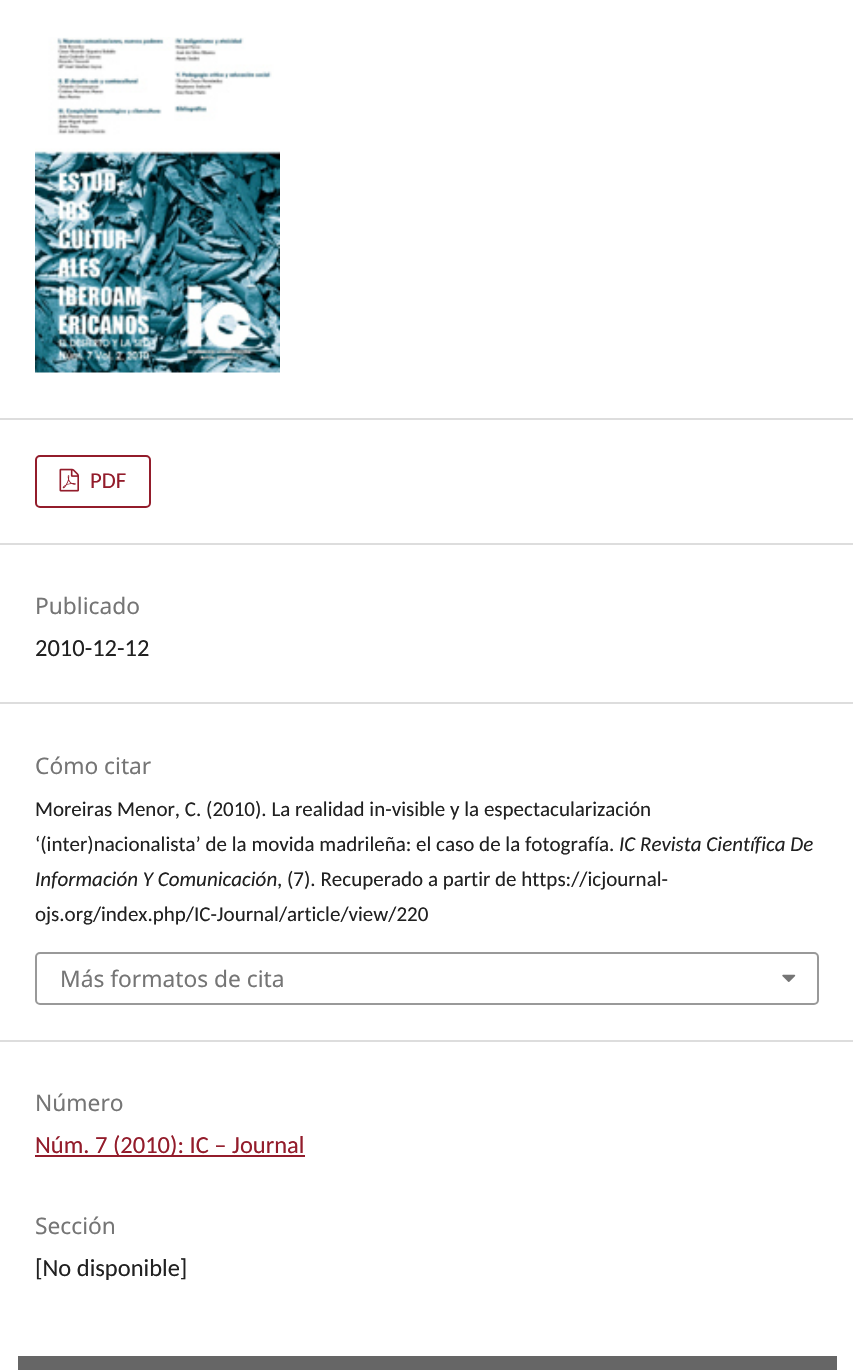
static SkFont makeFont(const char* family, int weight, float size, bool italic = false) {
  SkFontStyle style(weight, SkFontStyle::kNormal_Width,
    italic ? SkFontStyle::kItalic_Slant : SkFontStyle::kUpright_Slant);
  SkFont result(fontMgr->matchFamilyStyle(family, style), size);
  result.setSubpixel(true);
  return result;
}

static void text(SkCanvas* c, const char* s, float x, float y, const SkFont& font, SkColor color) {
  SkPaint ink(SkColor4f::FromColor(color));
  ink.setAntiAlias(true);
  c->drawString(s, x, y, font, ink);
}

static void box(SkCanvas* c, float l, float t, float r, float b, SkColor color) {
  SkPaint ink(SkColor4f::FromColor(color));
  ink.setAntiAlias(true);
  c->drawRect(SkRect::MakeLTRB(l, t, r, b), ink);
}

static void picture(SkCanvas* c, const char* path, float l, float t, float r, float b) {
  auto image = SkImages::DeferredFromEncodedData(SkData::MakeFromFileName(path));
  c->drawImageRect(image, SkRect::MakeLTRB(l, t, r, b), SkSamplingOptions());
}

void draw(SkCanvas* c) {
  SkPaint paint;
  paint.setAntiAlias(true);
  c->clear(0xffffffff);
  box(c, 0, 418, 853, 420, 0xffdddddd);
  picture(c, "img_01.png", 35, 37, 280, 373);
  box(c, 0, 543, 853, 545, 0xffdddddd);
  paint.setStyle(SkPaint::kStroke_Style);
  paint.setStrokeWidth(2);
  paint.setColor(0xff931c2b);
  c->drawRoundRect(SkRect::MakeLTRB(36, 456, 150, 507), 4, 4, paint);
  picture(c, "img_02.png", 59, 468, 79, 492);
  SkFont face1 = makeFont("Carlito", 400, 22.75f);
  text(c, "PDF", 90, 488, face1, 0xff931c2b);
  box(c, 0, 702, 853, 704, 0xffdddddd);
  SkFont face2 = makeFont("Noto Sans", 400, 22.75f);
  text(c, "Publicado", 35, 614, face2, 0xff757575);
  SkFont face3 = makeFont("Carlito", 400, 24.5f);
  text(c, "2010-12-12", 35, 656, face3, 0xff212121);
  box(c, 0, 1040, 853, 1042, 0xffdddddd);
  text(c, "Cómo citar", 35, 774, face2, 0xff757575);
  SkFont face4 = makeFont("Carlito", 400, 21);
  text(c, "Moreiras Menor, C. (2010). La realidad in-visible y la espectacularización", 35, 816, face4, 0xff212121);
  text(c, "‘(inter)nacionalista’ de la movida madrileña: el caso de la fotografía.", 35, 851, face4, 0xff212121);
  SkFont face5 = makeFont("Carlito", 400, 21, true);
  text(c, "IC Revista Científica De", 619, 851, face5, 0xff212121);
  text(c, "Información Y Comunicación", 35, 886, face5, 0xff212121);
  text(c, ", (7). Recuperado a partir de https://icjournal-", 277, 886, face4, 0xff212121);
  text(c, "ojs.org/index.php/IC-Journal/article/view/220", 35, 921, face4, 0xff212121);
  paint.setColor(0xff999999);
  c->drawRoundRect(SkRect::MakeLTRB(36, 953, 818, 1004), 4, 4, paint);
  text(c, "Más formatos de cita", 60, 987, face2, 0xff757575);
  picture(c, "img_03.png", 782, 974, 796, 982);
  text(c, "Número", 35, 1111, face2, 0xff757575);
  box(c, 35, 1155, 305, 1157, 0xff931c2b);
  text(c, "Núm. 7 (2010): IC – Journal", 35, 1153, face3, 0xff931c2b);
  text(c, "Sección", 35, 1234, face2, 0xff757575);
  text(c, "[No disponible]", 35, 1276, face3, 0xff212121);
  box(c, 18, 1356, 837, 1370, 0xff666666);
}
